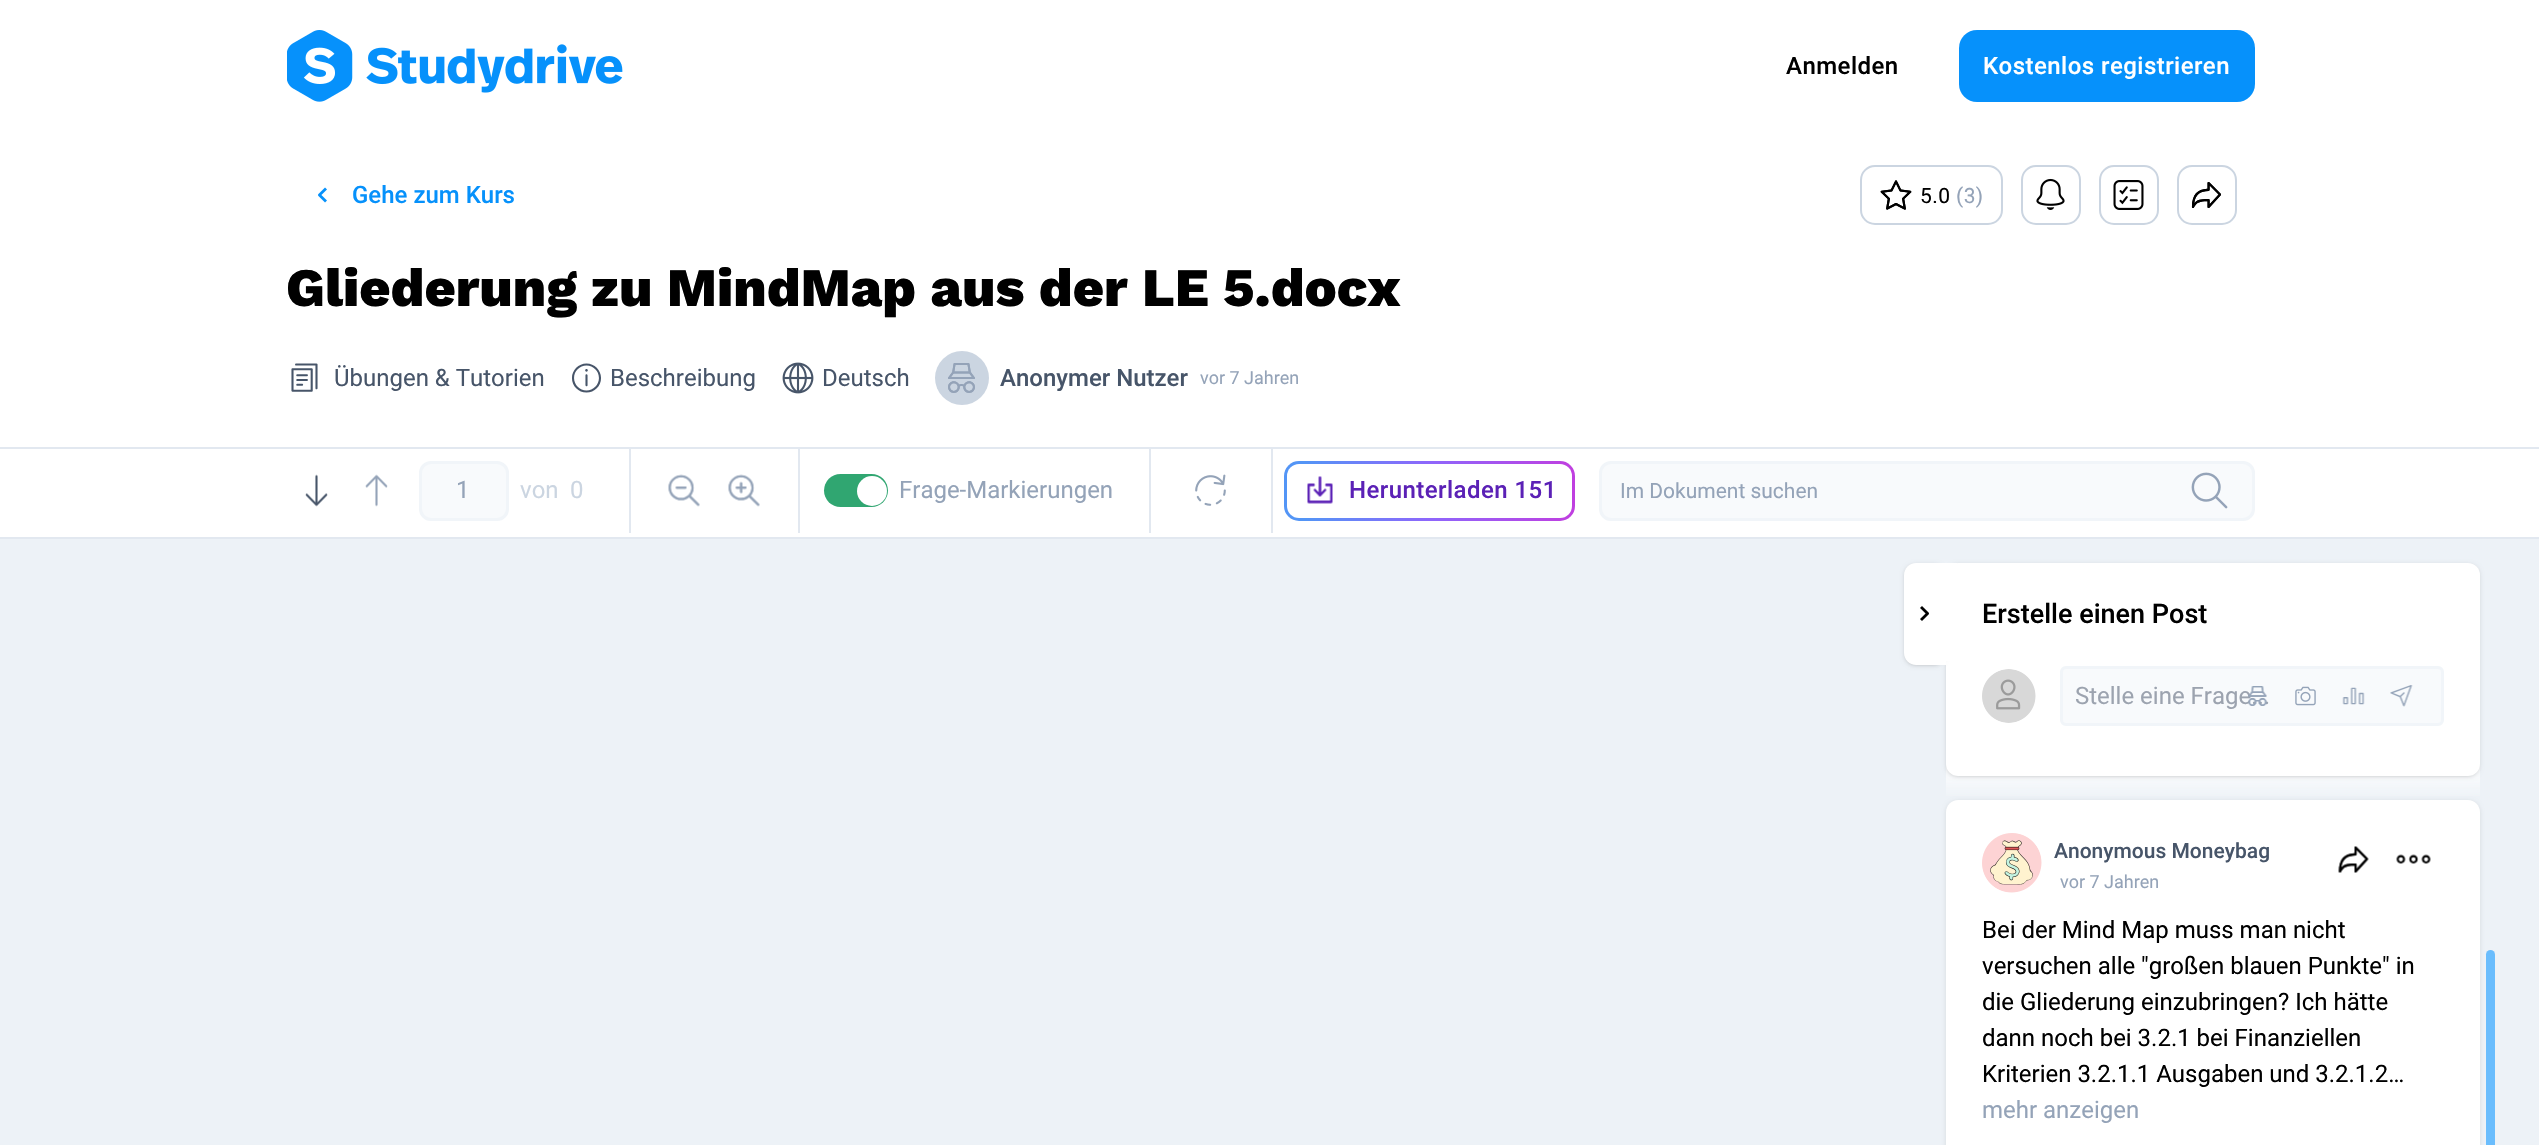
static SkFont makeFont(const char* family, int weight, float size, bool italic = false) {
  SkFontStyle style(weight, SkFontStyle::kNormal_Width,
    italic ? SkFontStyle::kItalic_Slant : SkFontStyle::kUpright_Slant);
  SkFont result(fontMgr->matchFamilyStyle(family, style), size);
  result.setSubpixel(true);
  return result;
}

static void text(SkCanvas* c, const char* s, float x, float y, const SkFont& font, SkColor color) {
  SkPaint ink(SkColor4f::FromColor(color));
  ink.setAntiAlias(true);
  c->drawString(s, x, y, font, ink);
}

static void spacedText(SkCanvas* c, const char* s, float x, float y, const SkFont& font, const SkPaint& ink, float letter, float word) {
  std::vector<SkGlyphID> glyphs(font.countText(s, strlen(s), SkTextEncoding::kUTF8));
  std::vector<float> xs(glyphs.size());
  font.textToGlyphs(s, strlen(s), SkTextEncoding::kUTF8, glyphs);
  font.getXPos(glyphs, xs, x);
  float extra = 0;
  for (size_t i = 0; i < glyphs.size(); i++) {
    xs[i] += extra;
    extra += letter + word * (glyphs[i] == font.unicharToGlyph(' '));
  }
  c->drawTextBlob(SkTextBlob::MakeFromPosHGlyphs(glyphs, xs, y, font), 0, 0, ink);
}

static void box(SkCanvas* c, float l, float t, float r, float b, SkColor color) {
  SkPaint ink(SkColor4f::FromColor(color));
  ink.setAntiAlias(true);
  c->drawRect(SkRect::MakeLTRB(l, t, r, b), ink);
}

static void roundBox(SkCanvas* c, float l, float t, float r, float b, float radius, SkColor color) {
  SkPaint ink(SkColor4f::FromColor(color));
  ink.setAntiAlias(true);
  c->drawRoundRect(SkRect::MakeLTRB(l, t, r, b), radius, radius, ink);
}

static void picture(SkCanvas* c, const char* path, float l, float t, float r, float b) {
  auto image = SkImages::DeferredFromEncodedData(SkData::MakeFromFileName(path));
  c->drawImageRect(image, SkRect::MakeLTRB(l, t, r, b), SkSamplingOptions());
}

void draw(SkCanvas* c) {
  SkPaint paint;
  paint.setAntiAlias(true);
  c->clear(0xffedf2f7);
  box(c, 0, 0, 2539, 447, 0xffffffff);
  picture(c, "img_01.png", 287, 30, 623, 102);
  SkFont face1 = makeFont("Roboto", 500, 24);
  paint.setColor(0xff000000);
  spacedText(c, "Anmelden", 1786, 74, face1, paint, 0.45f, 0);
  roundBox(c, 1959, 30, 2255, 102, 18, 0xff0691fb);
  paint.setColor(0xffffffff);
  spacedText(c, "Kostenlos registrieren", 1983, 74, face1, paint, 0.45f, 0);
  picture(c, "img_02.png", 318, 187, 327, 203);
  text(c, "Gehe zum Kurs", 352, 203, face1, 0xff0691fb);
  paint.setStyle(SkPaint::kStroke_Style);
  paint.setStrokeWidth(2);
  paint.setColor(0xffcbd5e1);
  c->drawRoundRect(SkRect::MakeLTRB(1861, 166, 2002, 224), 14, 14, paint);
  picture(c, "img_03.png", 1880, 180, 1912, 210);
  SkFont face2 = makeFont("Roboto", 400, 21);
  paint.setStyle(SkPaint::kFill_Style);
  paint.setColor(0xff000000);
  spacedText(c, "5.0", 1920, 203, face2, paint, 0.45f, 0);
  paint.setColor(0xff94a3b8);
  spacedText(c, "(3)", 1956, 203, face2, paint, 0.45f, 0);
  paint.setStyle(SkPaint::kStroke_Style);
  paint.setColor(0xffcbd5e1);
  c->drawRoundRect(SkRect::MakeLTRB(2022, 166, 2080, 224), 14, 14, paint);
  picture(c, "img_04.png", 2036, 178, 2065, 210);
  c->drawRoundRect(SkRect::MakeLTRB(2100, 166, 2158, 224), 14, 14, paint);
  picture(c, "img_05.png", 2113, 180, 2144, 210);
  c->drawRoundRect(SkRect::MakeLTRB(2178, 166, 2236, 224), 14, 14, paint);
  picture(c, "img_06.png", 2191, 182, 2221, 208);
  SkFont face3 = makeFont("Work Sans", 800, 54);
  text(c, "Gliederung zu MindMap aus der LE 5.docx", 286, 306, face3, 0xff000000);
  picture(c, "img_07.png", 291, 363, 318, 392);
  SkFont face4 = makeFont("Roboto", 400, 24);
  text(c, "Übungen & Tutorien", 334, 386, face4, 0xff475569);
  picture(c, "img_08.png", 572, 363, 601, 393);
  text(c, "Beschreibung", 610, 386, face4, 0xff475569);
  picture(c, "img_09.png", 782, 362, 814, 394);
  text(c, "Deutsch", 822, 386, face4, 0xff475569);
  paint.setStyle(SkPaint::kFill_Style);
  c->drawCircle(962, 378, 27, paint);
  picture(c, "img_10.png", 948, 363, 975, 393);
  text(c, "Anonymer Nutzer", 1000, 386, face1, 0xff475569);
  SkFont face5 = makeFont("Roboto", 400, 18);
  text(c, "vor 7 Jahren", 1200, 384, face5, 0xff94a3b8);
  box(c, 0, 449, 2539, 537, 0xffffffff);
  box(c, 0, 447, 2539, 449, 0xffe2e8f0);
  box(c, 0, 537, 2539, 539, 0xffe2e8f0);
  picture(c, "img_11.png", 305, 474, 328, 507);
  picture(c, "img_12.png", 365, 474, 388, 507);
  box(c, 629, 449, 631, 533, 0xffe2e8f0);
  paint.setColor(0xfff8fafc);
  c->drawRoundRect(SkRect::MakeLTRB(420.5f, 462.5f, 507.5f, 519.5f), 10.5f, 10.5f, paint);
  paint.setStyle(SkPaint::kStroke_Style);
  paint.setStrokeWidth(3);
  paint.setColor(0xfff1f5f9);
  c->drawRoundRect(SkRect::MakeLTRB(420.5f, 462.5f, 507.5f, 519.5f), 10.5f, 10.5f, paint);
  text(c, "1", 456, 498, face4, 0xff94a3b8);
  text(c, "von", 520, 498, face4, 0xffcbd5e1);
  text(c, "0", 570, 498, face4, 0xffcbd5e1);
  box(c, 798, 449, 800, 533, 0xffe2e8f0);
  picture(c, "img_13.png", 668, 474, 700, 507);
  picture(c, "img_14.png", 728, 474, 760, 507);
  box(c, 1149, 449, 1151, 533, 0xffe2e8f0);
  roundBox(c, 824, 474, 888, 507, 16.5f, 0xff30a671);
  paint.setStyle(SkPaint::kFill_Style);
  paint.setColor(0xffffffff);
  c->drawCircle(872, 491, 15, paint);
  text(c, "Frage-Markierungen", 899, 498, face4, 0xff94a3b8);
  box(c, 1271, 449, 1273, 533, 0xffe2e8f0);
  picture(c, "img_15.png", 1195, 474, 1226, 506);
  {
    const SkColor colors[] = {0xff5395f6, 0xff8e66fb, 0xffcc35d9};
    const float stops[] = {0.06f, 0.45f, 1};
    const SkPoint ends[] = {{1284, 491}, {1609, 490}};
    paint.setShader(SkGradientShader::MakeLinear(ends, colors, stops, 3, SkTileMode::kClamp));
    paint.setAlpha(255);
  }
  c->drawRoundRect(SkRect::MakeLTRB(1284, 461, 1575, 521), 15, 15, paint);
  roundBox(c, 1287, 464, 1572, 518, 12, 0xffffffff);
  picture(c, "img_16.png", 1307, 476, 1333, 504);
  paint.setShader(nullptr);
  paint.setColor(0xff5b21b6);
  spacedText(c, "Herunterladen 151", 1349, 498, face1, paint, 0.45f, 0);
  paint.setColor(0xfff8fafc);
  c->drawRoundRect(SkRect::MakeLTRB(1600.5f, 462.5f, 2253.5f, 519.5f), 10.5f, 10.5f, paint);
  paint.setStyle(SkPaint::kStroke_Style);
  paint.setColor(0xfff1f5f9);
  c->drawRoundRect(SkRect::MakeLTRB(1600.5f, 462.5f, 2253.5f, 519.5f), 10.5f, 10.5f, paint);
  text(c, "Im Dokument suchen", 1620, 498, face2, 0xff94a3b8);
  picture(c, "img_17.png", 2191, 472, 2228, 509);
  paint.setStyle(SkPaint::kFill_Style);
  paint.setColor(0x1a000000);
  paint.setMaskFilter(SkMaskFilter::MakeBlur(kNormal_SkBlurStyle, 2));
  c->drawRoundRect(SkRect::MakeLTRB(1946, 801, 2480, 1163), 12, 12, paint);
  paint.setMaskFilter(nullptr);
  {
    const SkColor colors[] = {0xfff8fafc, 0x05f8fafc};
    const float stops[] = {0.35f, 1};
    const SkPoint ends[] = {{2213, 764}, {2213, 800}};
    paint.setShader(SkGradientShader::MakeLinear(ends, colors, stops, 2, SkTileMode::kClamp));
    paint.setAlpha(255);
  }
  c->drawRect(SkRect::MakeLTRB(1946, 764, 2480, 796), paint);
  paint.setShader(nullptr);
  paint.setColor(0x1a000000);
  paint.setMaskFilter(SkMaskFilter::MakeBlur(kNormal_SkBlurStyle, 1.5f));
  c->drawRoundRect(SkRect::MakeLTRB(1947, 566, 2478, 776), 11, 11, paint);
  paint.setMaskFilter(nullptr);
  paint.setMaskFilter(SkMaskFilter::MakeBlur(kNormal_SkBlurStyle, 2));
  c->drawRoundRect(SkRect::MakeLTRB(1946, 564, 2480, 777), 12, 12, paint);
  paint.setMaskFilter(nullptr);
  roundBox(c, 1946, 563, 2480, 776, 12, 0xffffffff);
  paint.setMaskFilter(SkMaskFilter::MakeBlur(kNormal_SkBlurStyle, 1.5f));
  c->drawRoundRect(SkRect::MakeLTRB(1905, 566, 1944, 665), 11, 11, paint);
  paint.setMaskFilter(nullptr);
  paint.setMaskFilter(SkMaskFilter::MakeBlur(kNormal_SkBlurStyle, 2));
  c->drawRoundRect(SkRect::MakeLTRB(1904, 564, 1946, 666), 12, 12, paint);
  paint.setMaskFilter(nullptr);
  paint.setColor(0xffffffff);
  c->drawPath(SkPathBuilder().moveTo(1916, 563).lineTo(1946, 563).lineTo(1946, 665).lineTo(1916, 665).cubicTo(1909.5f, 665, 1904, 659.5f, 1904, 653).lineTo(1904, 575).cubicTo(1904, 568.5f, 1909.5f, 563, 1916, 563).close().detach(), paint);
  picture(c, "img_18.png", 1920, 606, 1929, 621);
  box(c, 1946, 563, 1957, 661, 0xffffffff);
  SkFont face6 = makeFont("Roboto", 500, 27);
  text(c, "Erstelle einen Post", 1982, 623, face6, 0xff000000);
  picture(c, "img_19.png", 1982, 669, 2036, 723);
  paint.setColor(0xfff8fafc);
  c->drawRoundRect(SkRect::MakeLTRB(2061.5f, 667.5f, 2442.5f, 724.5f), 4.5f, 4.5f, paint);
  paint.setStyle(SkPaint::kStroke_Style);
  paint.setColor(0xfff1f5f9);
  c->drawRoundRect(SkRect::MakeLTRB(2061.5f, 667.5f, 2442.5f, 724.5f), 4.5f, 4.5f, paint);
  text(c, "Stelle eine Frage...", 2075, 704, face4, 0xff9ca3af);
  picture(c, "img_20.png", 2248, 686, 2267, 706);
  picture(c, "img_21.png", 2295, 686, 2316, 706);
  picture(c, "img_22.png", 2342, 687, 2365, 705);
  picture(c, "img_23.png", 2390, 685, 2413, 707);
  paint.setStyle(SkPaint::kFill_Style);
  paint.setColor(0xffffffff);
  c->drawPath(SkPathBuilder().moveTo(1958, 800).lineTo(2468, 800).cubicTo(2474.5f, 800, 2480, 805.5f, 2480, 812).lineTo(2480, 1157).lineTo(1946, 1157).lineTo(1946, 812).cubicTo(1946, 805.5f, 1951.5f, 800, 1958, 800).close().detach(), paint);
  picture(c, "img_24.png", 1982, 833, 2042, 893);
  SkFont face7 = makeFont("Roboto", 500, 21);
  text(c, "Anonymous Moneybag", 2054, 858, face7, 0xff475569);
  text(c, "vor 7 Jahren", 2060, 888, face5, 0xff94a3b8);
  picture(c, "img_25.png", 2338, 846, 2369, 873);
  picture(c, "img_26.png", 2396, 854, 2431, 864);
  text(c, "Bei der Mind Map muss man nicht", 1982, 938, face4, 0xff000000);
  text(c, "versuchen alle \"großen blauen Punkte\" in", 1982, 974, face4, 0xff000000);
  text(c, "die Gliederung einzubringen? Ich hätte", 1982, 1010, face4, 0xff000000);
  text(c, "dann noch bei 3.2.1 bei Finanziellen", 1982, 1046, face4, 0xff000000);
  text(c, "Kriterien 3.2.1.1 Ausgaben und 3.2.1.2…", 1982, 1082, face4, 0xff000000);
  text(c, "mehr anzeigen", 1982, 1118, face4, 0xff94a3b8);
  roundBox(c, 2486, 950, 2495, 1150, 4.5f, 0xff6abdfd);
}
